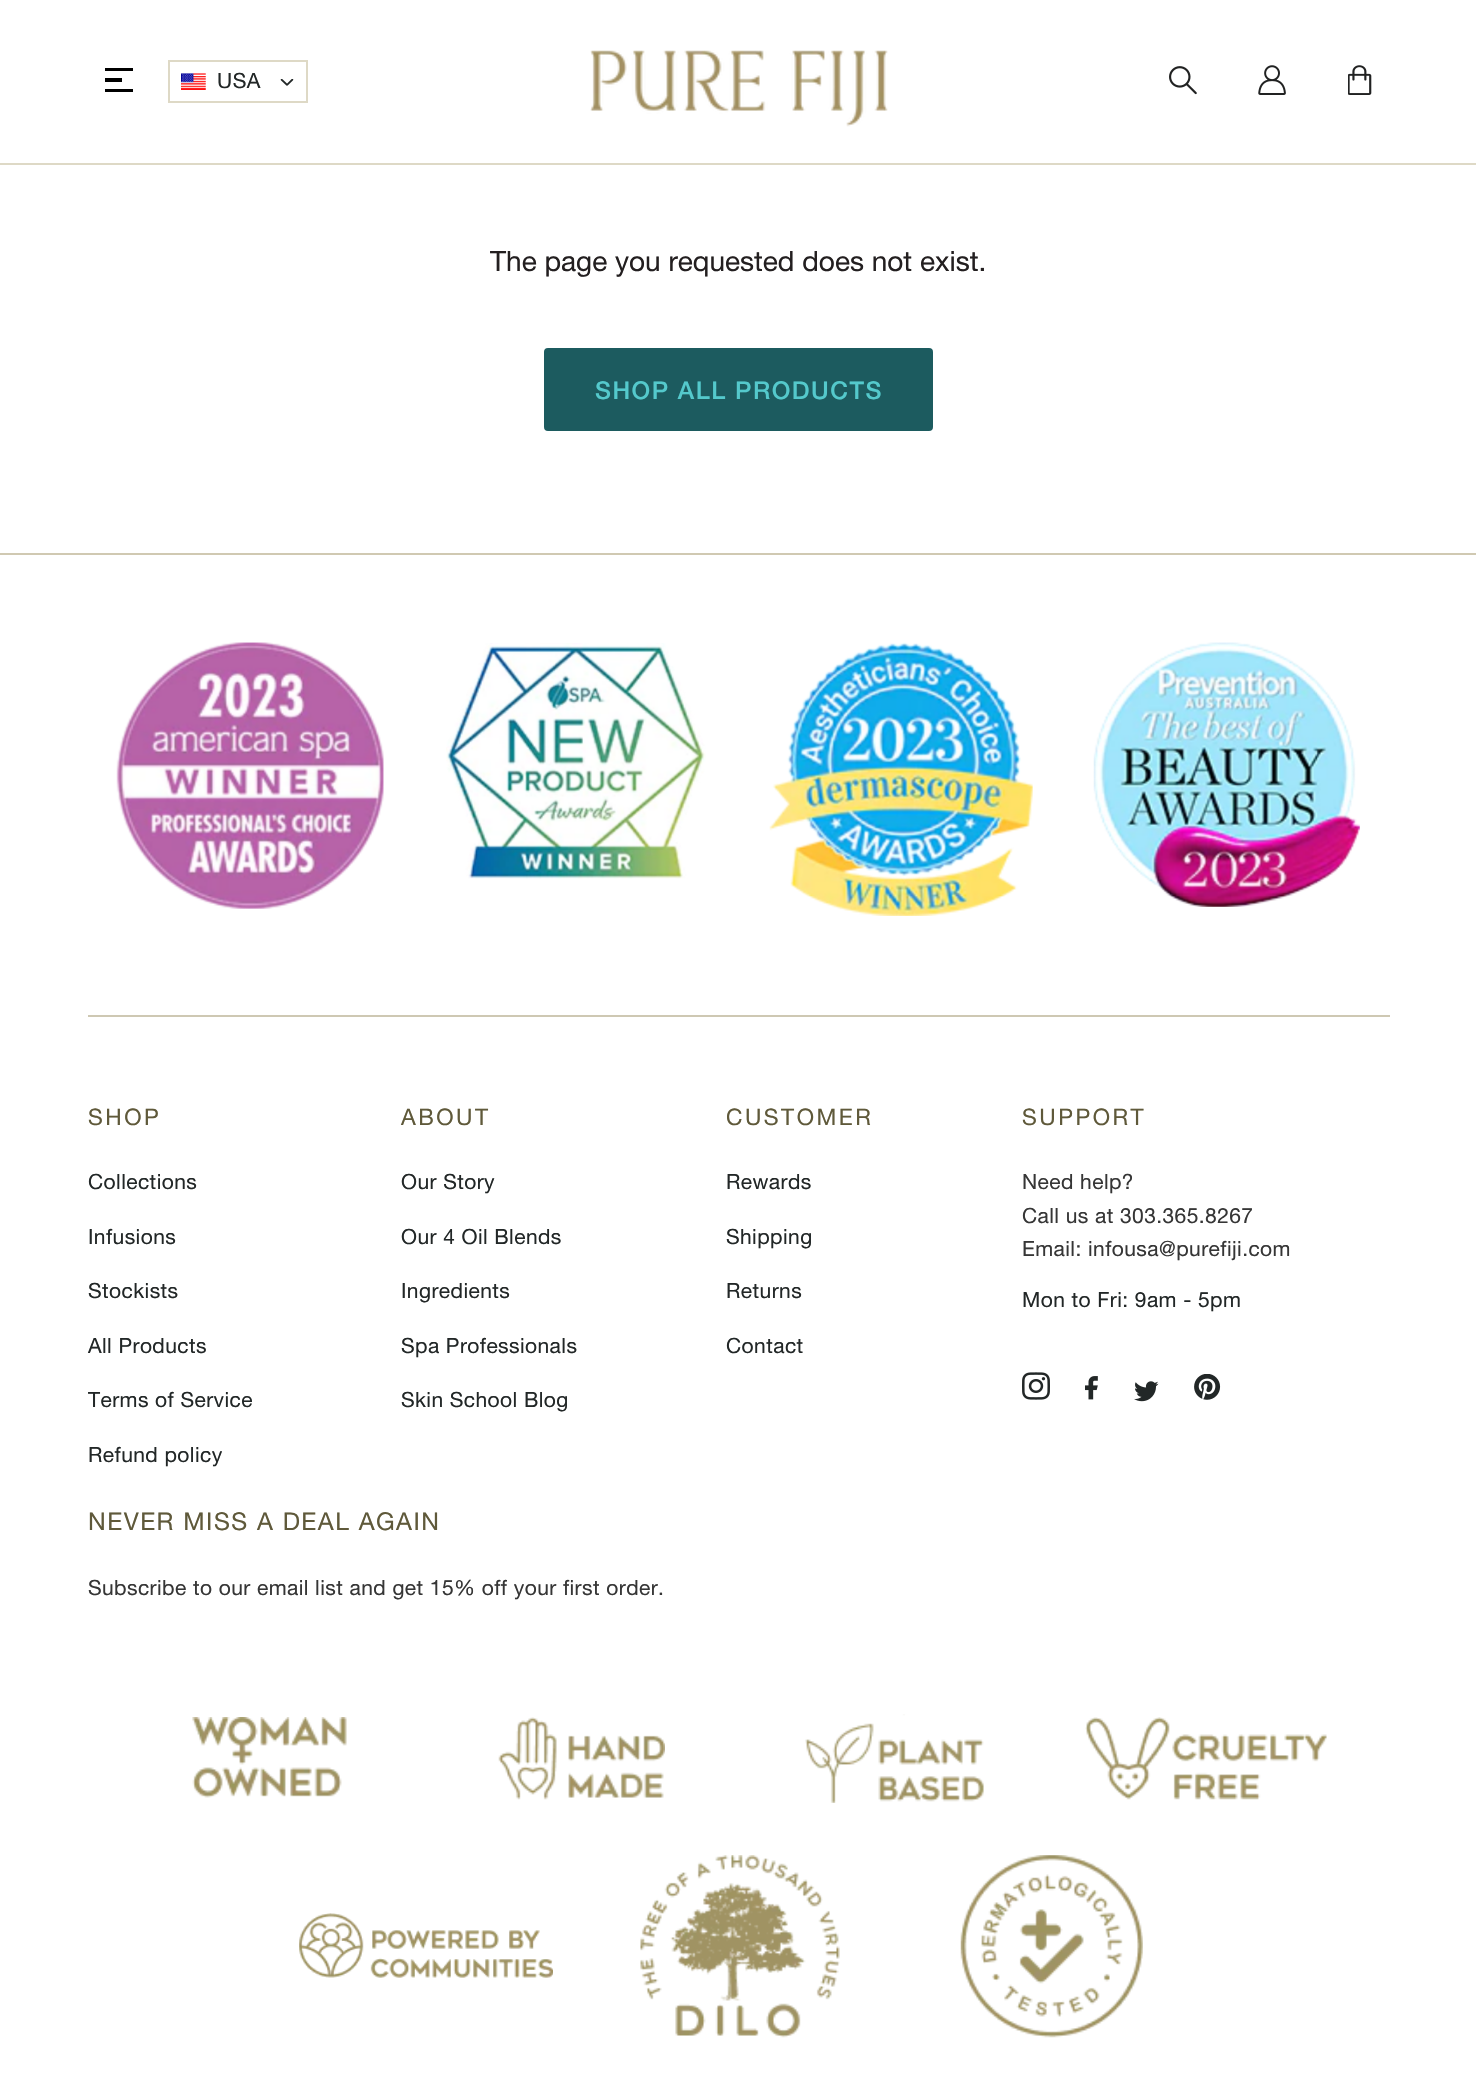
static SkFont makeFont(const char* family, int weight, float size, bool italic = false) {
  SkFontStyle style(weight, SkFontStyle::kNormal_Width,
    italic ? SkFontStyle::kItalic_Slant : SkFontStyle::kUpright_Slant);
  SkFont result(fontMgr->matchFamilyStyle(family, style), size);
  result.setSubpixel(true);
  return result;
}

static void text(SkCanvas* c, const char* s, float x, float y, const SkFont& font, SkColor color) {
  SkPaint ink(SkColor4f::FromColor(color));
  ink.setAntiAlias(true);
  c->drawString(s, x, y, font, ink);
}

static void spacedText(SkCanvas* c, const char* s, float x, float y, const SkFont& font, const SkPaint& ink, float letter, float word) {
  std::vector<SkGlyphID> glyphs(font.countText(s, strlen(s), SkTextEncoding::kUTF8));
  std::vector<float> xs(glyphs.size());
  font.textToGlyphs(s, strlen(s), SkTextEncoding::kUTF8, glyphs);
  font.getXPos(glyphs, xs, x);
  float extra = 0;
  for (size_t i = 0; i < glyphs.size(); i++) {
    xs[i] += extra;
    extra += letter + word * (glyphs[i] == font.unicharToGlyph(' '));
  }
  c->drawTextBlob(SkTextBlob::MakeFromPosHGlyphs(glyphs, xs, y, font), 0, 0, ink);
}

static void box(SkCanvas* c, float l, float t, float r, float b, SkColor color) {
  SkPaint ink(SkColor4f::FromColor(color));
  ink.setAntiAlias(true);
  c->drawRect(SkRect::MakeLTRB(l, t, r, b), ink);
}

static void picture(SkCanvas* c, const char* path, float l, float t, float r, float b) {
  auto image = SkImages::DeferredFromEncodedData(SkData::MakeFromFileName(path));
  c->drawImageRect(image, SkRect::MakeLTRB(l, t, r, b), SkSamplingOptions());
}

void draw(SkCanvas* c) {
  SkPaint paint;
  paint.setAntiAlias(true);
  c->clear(0xffffffff);
  box(c, 0, 163, 1476, 165, 0xffded9c6);
  box(c, 105, 68, 133, 71, 0xff000000);
  box(c, 105, 78, 122, 82, 0xff000000);
  box(c, 105, 89, 133, 92, 0xff000000);
  paint.setStyle(SkPaint::kStroke_Style);
  paint.setStrokeWidth(2);
  paint.setColor(0xffded9c6);
  c->drawRect(SkRect::MakeLTRB(169, 61, 307, 102), paint);
  picture(c, "img_01.png", 181, 73, 206, 90);
  SkFont face1 = makeFont("Helvetica Neue", 400, 21);
  paint.setStyle(SkPaint::kFill_Style);
  paint.setColor(0xff222727);
  spacedText(c, "USA", 217, 88, face1, paint, 0.5f, 0);
  picture(c, "img_02.png", 280, 79, 294, 86);
  picture(c, "img_03.png", 590, 50, 888, 127);
  picture(c, "img_04.png", 1169, 66, 1197, 95);
  picture(c, "img_05.png", 1258, 65, 1286, 95);
  picture(c, "img_06.png", 1348, 65, 1372, 95);
  SkFont face2 = makeFont("Helvetica Neue", 400, 28);
  text(c, "The page you requested does not exist.", 490, 271, face2, 0xff231f20);
  paint.setColor(0xff1c5b5f);
  c->drawRoundRect(SkRect::MakeLTRB(545, 349, 932, 430), 3, 3, paint);
  paint.setStyle(SkPaint::kStroke_Style);
  c->drawRoundRect(SkRect::MakeLTRB(545, 349, 932, 430), 3, 3, paint);
  SkFont face3 = makeFont("Helvetica Neue", 500, 24.5f);
  paint.setStyle(SkPaint::kFill_Style);
  paint.setColor(0xff54c9cc);
  spacedText(c, "SHOP ALL PRODUCTS", 595, 399, face3, paint, 1.5f, 0);
  box(c, 0, 553, 1476, 555, 0xffd0c9b2);
  box(c, 88, 1015, 1390, 1017, 0xffcec8b3);
  picture(c, "img_07.png", 116, 642, 384, 909);
  picture(c, "img_08.png", 446, 643, 706, 879);
  picture(c, "img_09.png", 769, 642, 1033, 916);
  picture(c, "img_10.png", 1093, 642, 1360, 907);
  SkFont face4 = makeFont("Helvetica Neue", 400, 22.75f);
  paint.setColor(0xff5f593a);
  spacedText(c, "SHOP", 88, 1125, face4, paint, 2.5f, 0);
  paint.setColor(0xff222727);
  spacedText(c, "Collections", 88, 1189, face1, paint, 0.42f, 0);
  spacedText(c, "Infusions", 88, 1244, face1, paint, 0.42f, 0);
  spacedText(c, "Stockists", 88, 1298, face1, paint, 0.42f, 0);
  spacedText(c, "All Products", 88, 1353, face1, paint, 0.42f, 0);
  spacedText(c, "Terms of Service", 88, 1407, face1, paint, 0.42f, 0);
  spacedText(c, "Refund policy", 88, 1462, face1, paint, 0.42f, 0);
  paint.setColor(0xff5f593a);
  spacedText(c, "ABOUT", 401, 1125, face4, paint, 2.5f, 0);
  paint.setColor(0xff222727);
  spacedText(c, "Our Story", 401, 1189, face1, paint, 0.42f, 0);
  spacedText(c, "Our 4 Oil Blends", 401, 1244, face1, paint, 0.42f, 0);
  spacedText(c, "Ingredients", 401, 1298, face1, paint, 0.42f, 0);
  spacedText(c, "Spa Professionals", 401, 1353, face1, paint, 0.42f, 0);
  spacedText(c, "Skin School Blog", 401, 1407, face1, paint, 0.42f, 0);
  paint.setColor(0xff5f593a);
  spacedText(c, "CUSTOMER", 726, 1125, face4, paint, 2.5f, 0);
  paint.setColor(0xff222727);
  spacedText(c, "Rewards", 726, 1189, face1, paint, 0.42f, 0);
  spacedText(c, "Shipping", 726, 1244, face1, paint, 0.42f, 0);
  spacedText(c, "Returns", 726, 1298, face1, paint, 0.42f, 0);
  spacedText(c, "Contact", 726, 1353, face1, paint, 0.42f, 0);
  paint.setColor(0xff5f593a);
  spacedText(c, "SUPPORT", 1022, 1125, face4, paint, 2.5f, 0);
  paint.setColor(0xff363636);
  spacedText(c, "Need help?", 1022, 1189, face1, paint, 0.42f, 0);
  spacedText(c, "Call us at 303.365.8267", 1022, 1223, face1, paint, 0.42f, 0);
  spacedText(c, "Email: infousa@purefiji.com", 1022, 1256, face1, paint, 0.42f, 0);
  paint.setColor(0xff222727);
  spacedText(c, "Mon to Fri: 9am - 5pm", 1022, 1307, face1, paint, 0.42f, 0);
  picture(c, "img_11.png", 1022, 1372, 1050, 1400);
  picture(c, "img_12.png", 1085, 1376, 1098, 1400);
  picture(c, "img_13.png", 1134, 1381, 1159, 1402);
  picture(c, "img_14.png", 1194, 1374, 1221, 1400);
  SkFont face5 = makeFont("Helvetica Neue", 400, 24.5f);
  paint.setColor(0xff5f593a);
  spacedText(c, "NEVER MISS A DEAL AGAIN", 88, 1530, face5, paint, 1.5f, 0);
  paint.setColor(0xff363636);
  spacedText(c, "Subscribe to our email list and get 15% off your first order.", 88, 1595, face1, paint, 0.42f, 0);
  picture(c, "img_15.png", 192, 1717, 347, 1798);
  picture(c, "img_16.png", 498, 1717, 665, 1800);
  picture(c, "img_17.png", 805, 1714, 984, 1803);
  picture(c, "img_18.png", 1085, 1717, 1327, 1800);
  picture(c, "img_19.png", 299, 1913, 553, 1978);
  picture(c, "img_20.png", 640, 1855, 840, 2038);
  picture(c, "img_21.png", 960, 1855, 1143, 2038);
}
